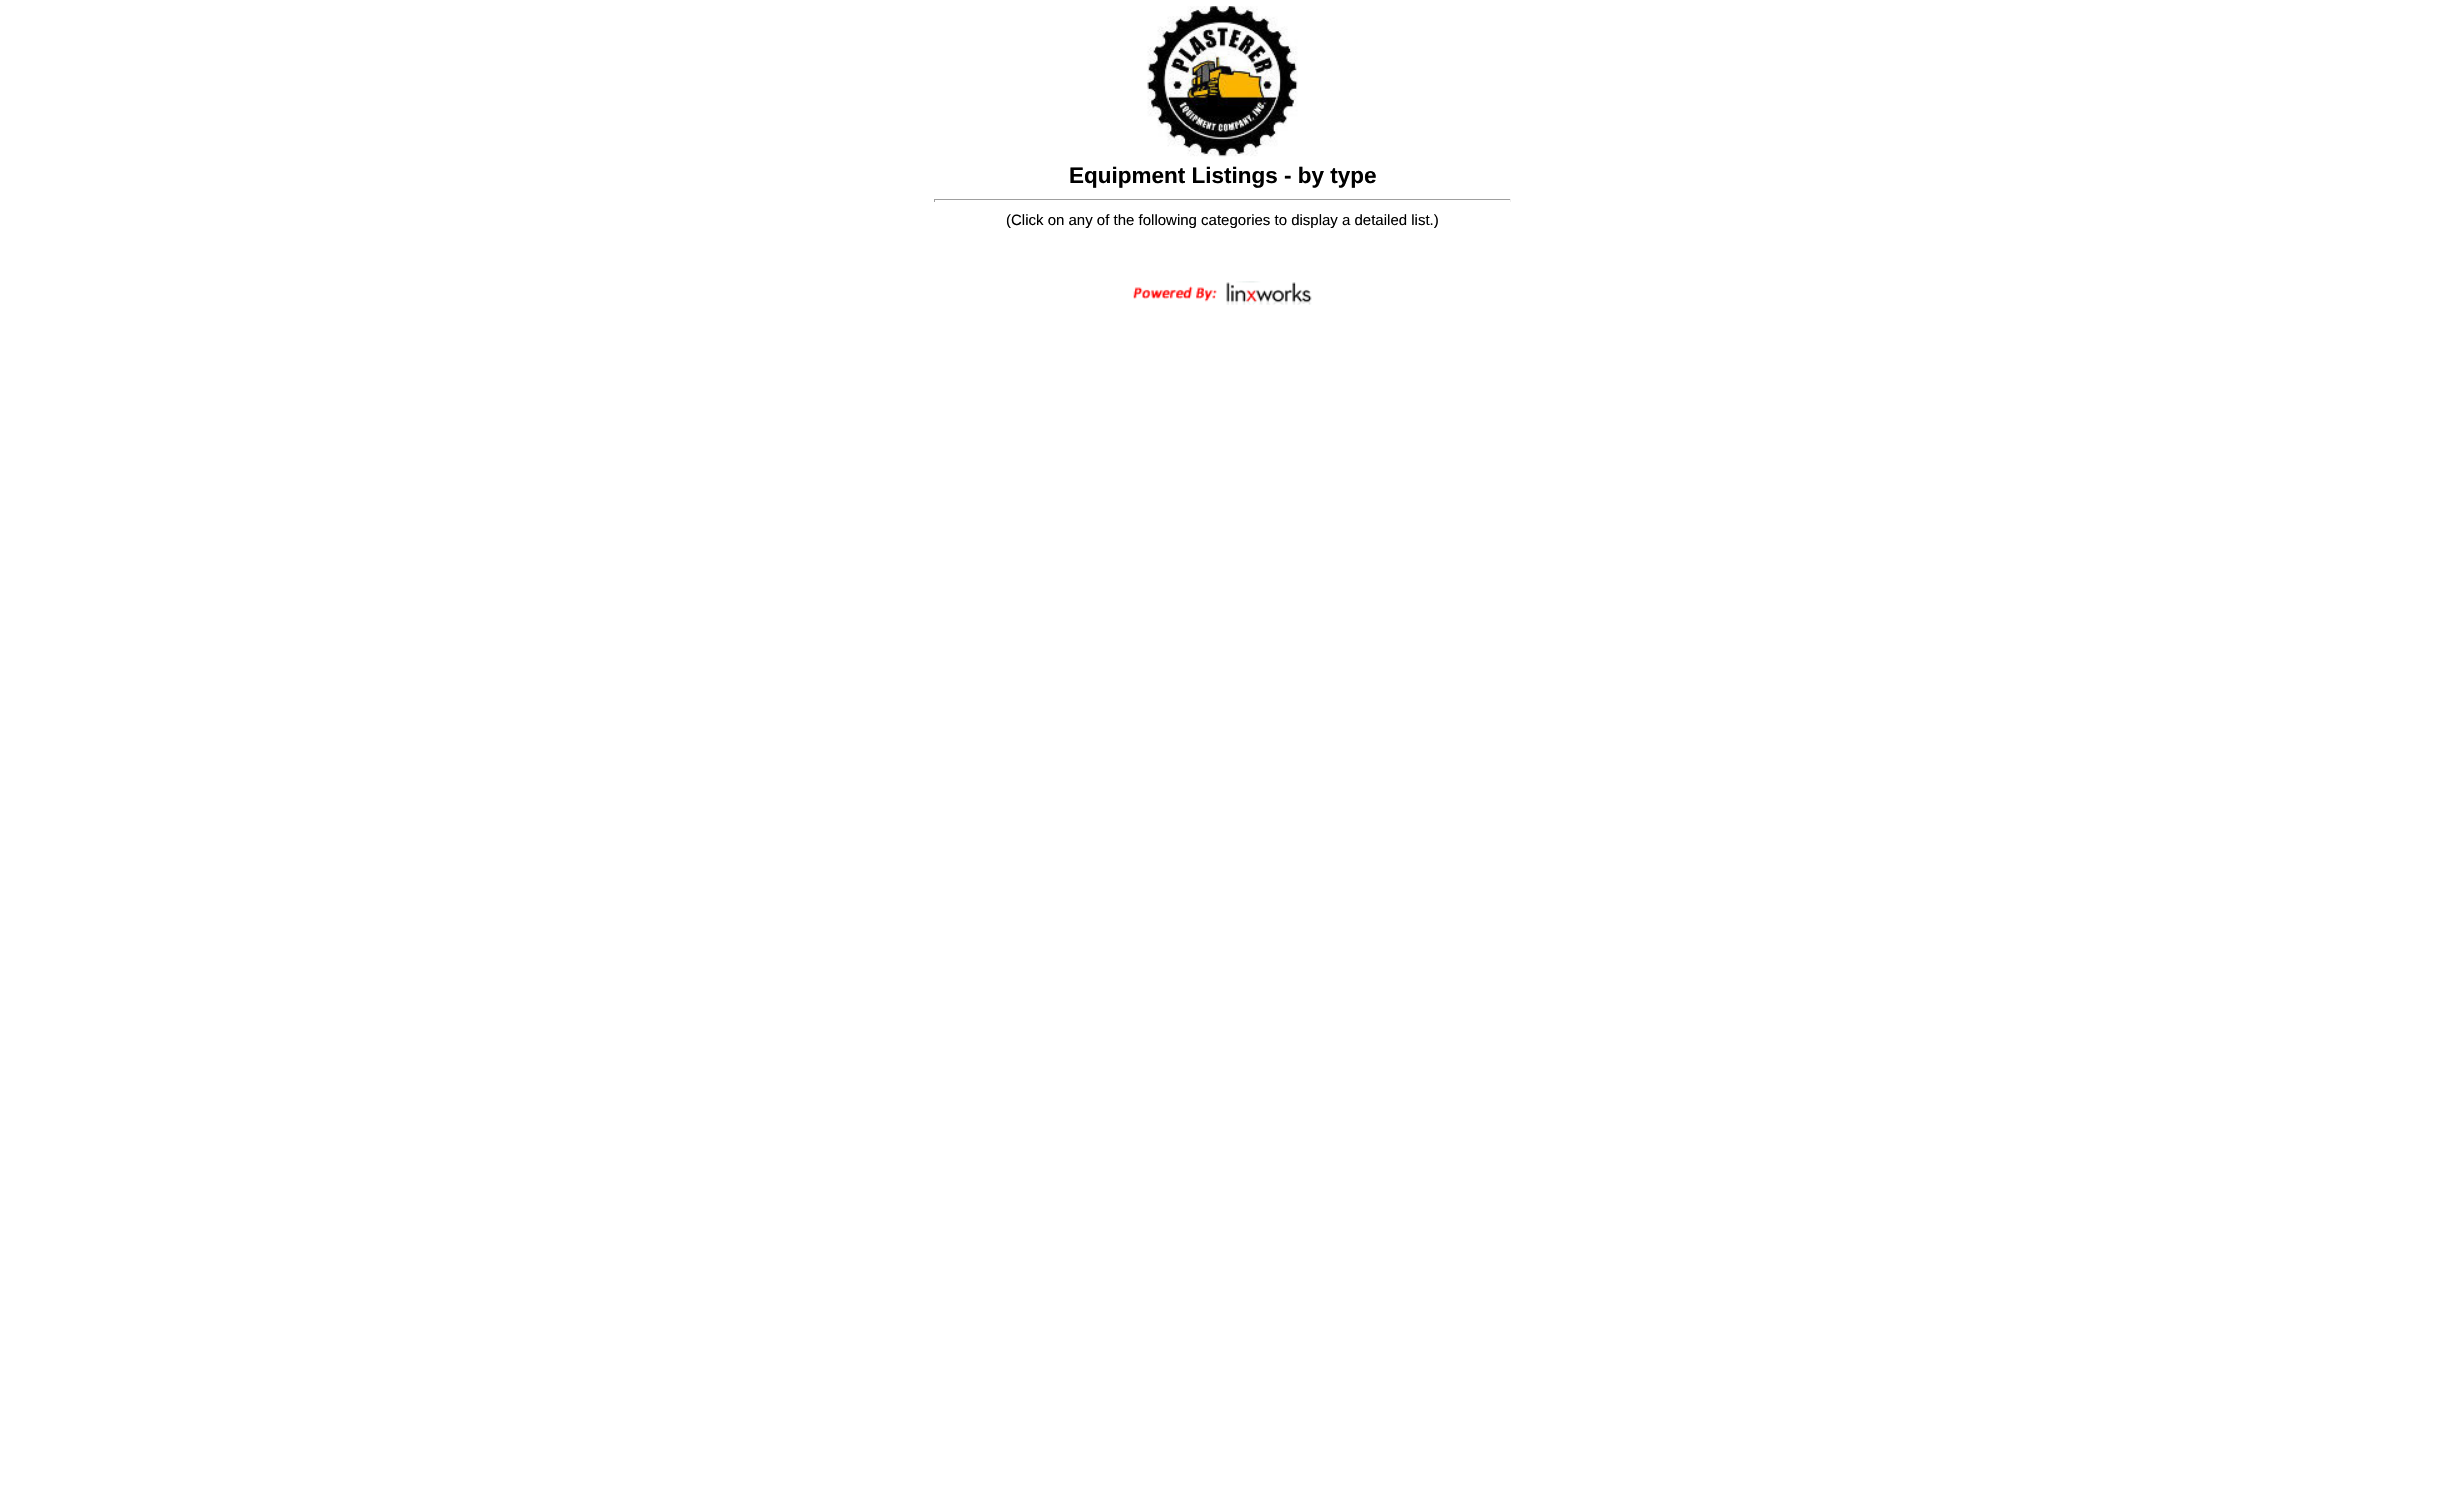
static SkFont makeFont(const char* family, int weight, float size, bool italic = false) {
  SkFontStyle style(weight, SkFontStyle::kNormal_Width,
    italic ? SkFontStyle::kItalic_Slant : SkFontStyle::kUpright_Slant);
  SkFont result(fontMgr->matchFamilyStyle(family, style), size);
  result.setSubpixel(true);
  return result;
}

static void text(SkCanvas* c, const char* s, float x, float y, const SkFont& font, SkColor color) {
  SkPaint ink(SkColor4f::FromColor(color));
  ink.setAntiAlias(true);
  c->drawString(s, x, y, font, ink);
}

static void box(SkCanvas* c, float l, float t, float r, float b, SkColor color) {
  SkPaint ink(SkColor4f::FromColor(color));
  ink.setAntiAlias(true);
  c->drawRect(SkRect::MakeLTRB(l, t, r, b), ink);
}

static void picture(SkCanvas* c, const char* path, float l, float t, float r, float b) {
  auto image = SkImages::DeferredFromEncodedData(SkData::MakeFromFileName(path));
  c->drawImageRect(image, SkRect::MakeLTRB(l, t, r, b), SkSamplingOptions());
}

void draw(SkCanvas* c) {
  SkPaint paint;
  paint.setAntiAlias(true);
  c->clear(0xffffffff);
  picture(c, "img_01.png", 1147, 6, 1298, 157);
  SkFont face1 = makeFont("Liberation Sans", 700, 22.5f);
  text(c, "Equipment Listings - by type", 1069, 183, face1, 0xff000000);
  box(c, 934, 199, 1511, 200, 0xff9f9f9f);
  box(c, 1510, 199, 1511, 202, 0xffeeeeee);
  box(c, 934, 199, 935, 202, 0xff9f9f9f);
  SkFont face2 = makeFont("Liberation Sans", 400, 15);
  text(c, "(Click on any of the following categories to display a detailed list.)", 1006, 225, face2, 0xff000000);
  picture(c, "img_02.png", 1133, 281, 1312, 305);
}
